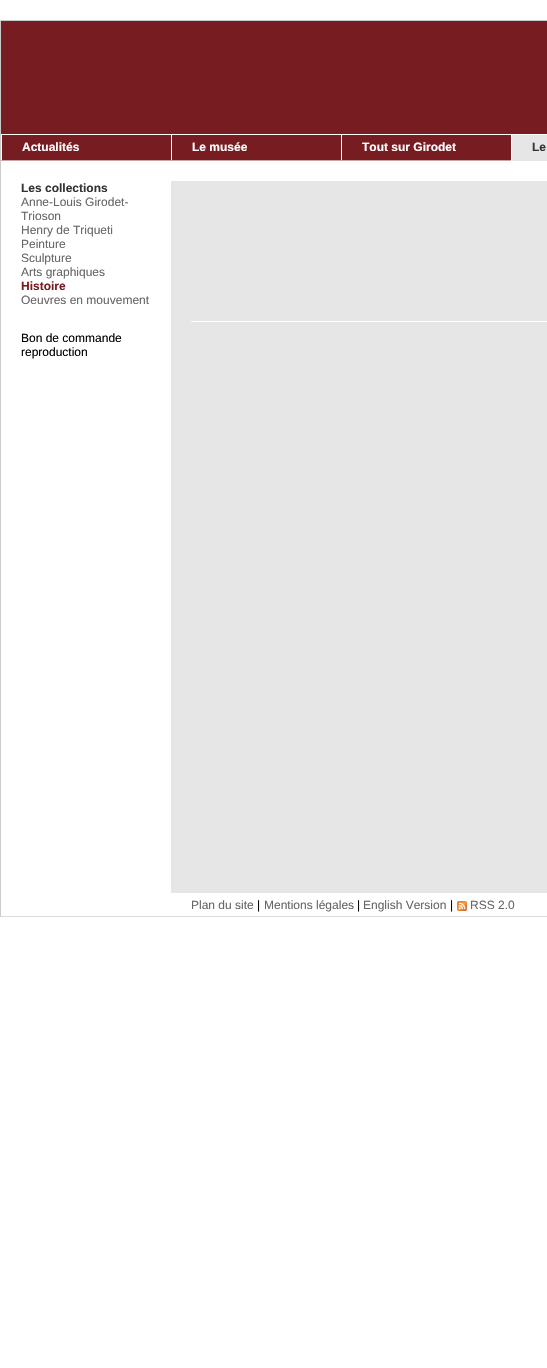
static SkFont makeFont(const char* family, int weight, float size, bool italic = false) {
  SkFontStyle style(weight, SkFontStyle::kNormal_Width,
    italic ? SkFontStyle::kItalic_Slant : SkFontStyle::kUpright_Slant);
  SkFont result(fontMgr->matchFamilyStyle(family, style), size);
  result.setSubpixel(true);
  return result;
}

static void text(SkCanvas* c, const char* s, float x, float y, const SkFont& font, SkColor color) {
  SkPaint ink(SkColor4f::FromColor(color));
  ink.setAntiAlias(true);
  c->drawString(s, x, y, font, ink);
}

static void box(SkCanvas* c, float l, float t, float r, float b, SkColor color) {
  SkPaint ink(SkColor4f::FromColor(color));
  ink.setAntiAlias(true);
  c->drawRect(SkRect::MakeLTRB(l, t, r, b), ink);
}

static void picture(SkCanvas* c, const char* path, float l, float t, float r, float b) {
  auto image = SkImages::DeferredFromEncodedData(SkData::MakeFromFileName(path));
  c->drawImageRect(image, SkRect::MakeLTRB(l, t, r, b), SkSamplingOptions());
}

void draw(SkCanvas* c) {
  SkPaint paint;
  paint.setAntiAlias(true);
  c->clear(0xffffffff);
  box(c, 0, 20, 547, 21, 0xffcbcbcb);
  box(c, 0, 916, 547, 917, 0xffdcdbd9);
  box(c, 0, 20, 1, 917, 0xffcbcbcb);
  box(c, 1, 21, 547, 134, 0xff771c21);
  box(c, 1, 160, 511, 161, 0xffcca3a6);
  box(c, 2, 135, 171, 160, 0xff771c21);
  SkFont face1 = makeFont("Liberation Sans", 700, 12);
  text(c, "Actualités", 22, 151, face1, 0xffffffff);
  box(c, 172, 135, 341, 160, 0xff771c21);
  text(c, "Le musée", 192, 151, face1, 0xffffffff);
  box(c, 342, 135, 511, 160, 0xff771c21);
  text(c, "Tout sur Girodet", 362, 151, face1, 0xffffffff);
  box(c, 512, 135, 547, 161, 0xffe6e6e6);
  text(c, "Le", 532, 151, face1, 0xff333333);
  text(c, "Les collections", 21, 192, face1, 0xff333333);
  SkFont face2 = makeFont("Liberation Sans", 400, 12);
  text(c, "Anne-Louis Girodet-", 21, 206, face2, 0xff666666);
  text(c, "Trioson", 21, 220, face2, 0xff666666);
  text(c, "Henry de Triqueti", 21, 234, face2, 0xff666666);
  text(c, "Peinture", 21, 248, face2, 0xff666666);
  text(c, "Sculpture", 21, 262, face2, 0xff666666);
  text(c, "Arts graphiques", 21, 276, face2, 0xff666666);
  text(c, "Histoire", 21, 290, face1, 0xff771c21);
  text(c, "Oeuvres en mouvement", 21, 304, face2, 0xff666666);
  text(c, "Bon de commande", 21, 342, face2, 0xff000000);
  text(c, "reproduction", 21, 356, face2, 0xff000000);
  box(c, 171, 181, 547, 893, 0xffe6e6e6);
  box(c, 191, 321, 547, 322, 0xfffefefe);
  text(c, "Plan du site", 191, 909, face2, 0xff666666);
  text(c, "|", 257, 909, face2, 0xff000000);
  text(c, "Mentions légales", 264, 909, face2, 0xff666666);
  text(c, "|", 357, 909, face2, 0xff000000);
  text(c, "English Version", 363, 909, face2, 0xff666666);
  text(c, "|", 450, 909, face2, 0xff000000);
  picture(c, "img_01.png", 457, 901, 467, 911);
  text(c, "RSS 2.0", 470, 909, face2, 0xff666666);
}
